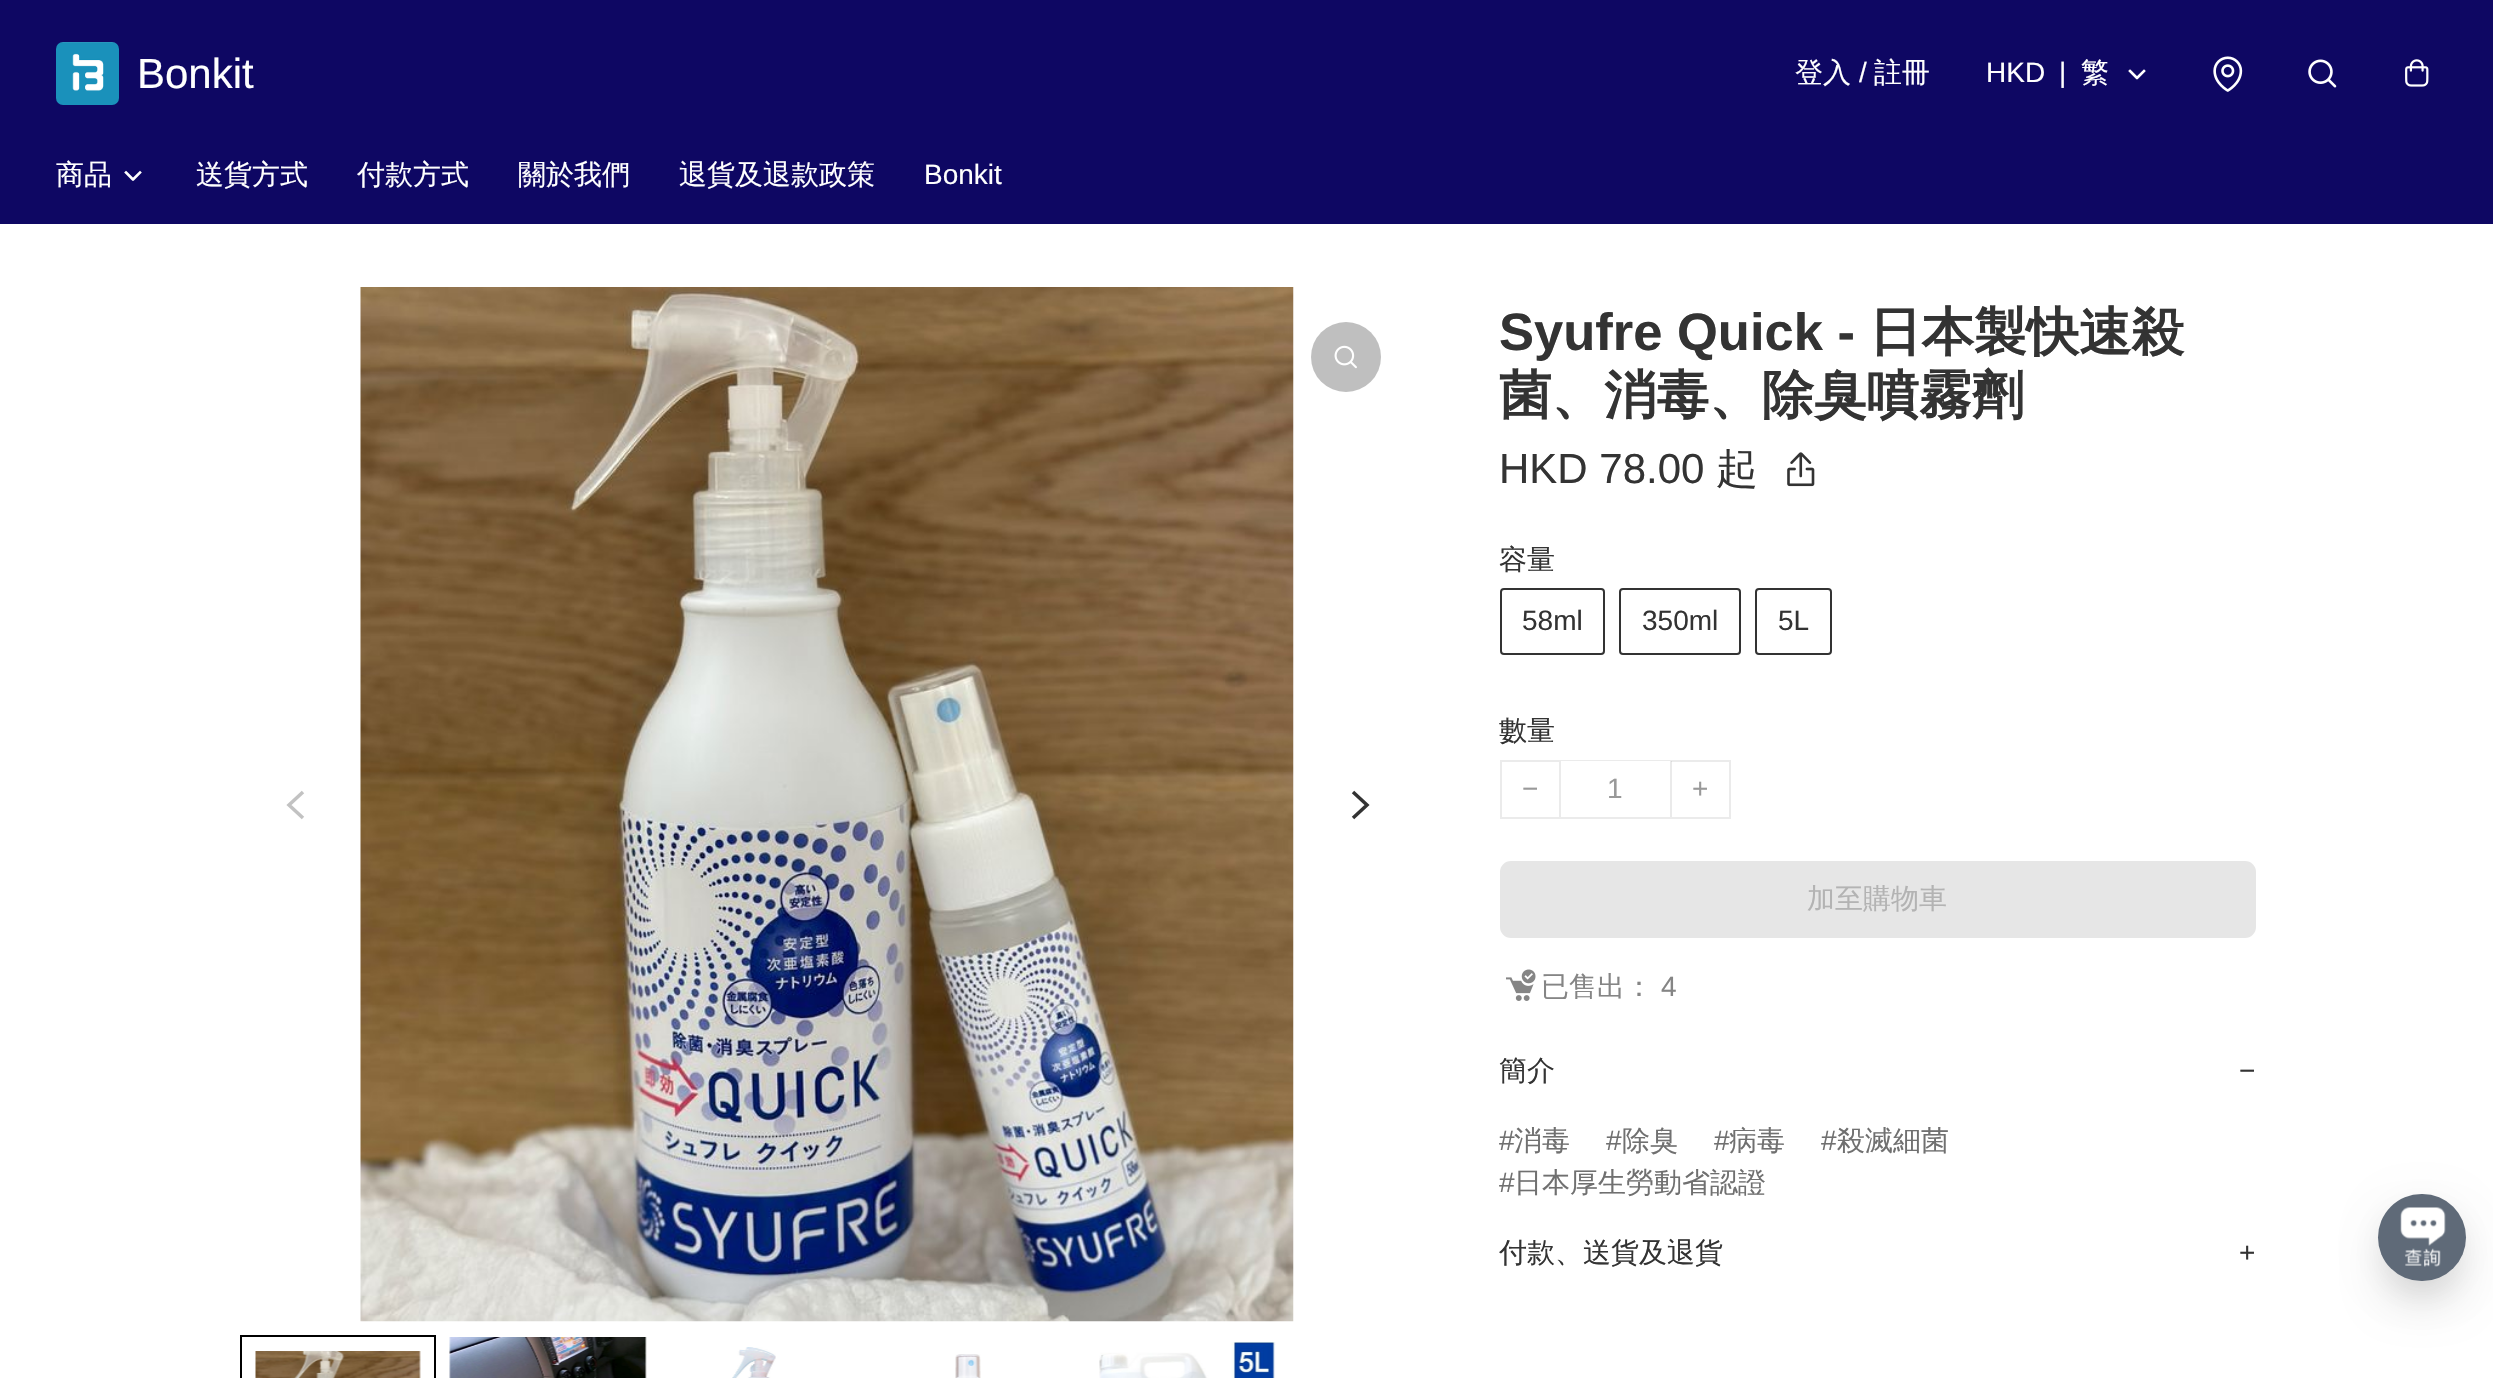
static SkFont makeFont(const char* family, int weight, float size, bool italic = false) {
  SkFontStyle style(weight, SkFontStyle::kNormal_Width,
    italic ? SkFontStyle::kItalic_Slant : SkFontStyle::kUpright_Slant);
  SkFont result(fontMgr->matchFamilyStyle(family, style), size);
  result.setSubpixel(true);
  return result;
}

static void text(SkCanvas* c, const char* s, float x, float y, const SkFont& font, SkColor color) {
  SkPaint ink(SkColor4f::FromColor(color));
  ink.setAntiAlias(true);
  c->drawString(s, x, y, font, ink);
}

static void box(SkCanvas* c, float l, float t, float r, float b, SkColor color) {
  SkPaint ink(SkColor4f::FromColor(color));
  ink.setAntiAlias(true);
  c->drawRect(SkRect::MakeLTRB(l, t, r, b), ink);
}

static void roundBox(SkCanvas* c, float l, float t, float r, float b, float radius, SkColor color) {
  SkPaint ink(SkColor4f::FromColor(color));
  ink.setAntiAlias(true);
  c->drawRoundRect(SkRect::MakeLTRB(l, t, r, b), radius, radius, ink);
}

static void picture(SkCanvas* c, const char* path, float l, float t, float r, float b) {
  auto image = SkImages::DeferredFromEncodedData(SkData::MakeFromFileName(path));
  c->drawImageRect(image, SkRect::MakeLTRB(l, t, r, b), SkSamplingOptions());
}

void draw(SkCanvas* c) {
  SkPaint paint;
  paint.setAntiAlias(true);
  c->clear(0xffffffff);
  box(c, 0, 0, 2493, 224, 0xff0e0763);
  picture(c, "img_01.png", 56, 42, 119, 105);
  SkFont face1 = makeFont("Liberation Sans", 400, 42);
  text(c, "Bonkit", 137, 88, face1, 0xffffffff);
  SkFont face2 = makeFont("WenQuanYi Zen Hei", 500, 28);
  text(c, "登入", 1795, 82, face2, 0xffffffff);
  SkFont face3 = makeFont("Liberation Sans", 400, 28);
  text(c, "/", 1859, 82, face3, 0xffffffff);
  text(c, "註冊", 1874, 82, face2, 0xffffffff);
  text(c, "HKD", 1986, 82, face3, 0xffffffff);
  text(c, "|", 2059, 82, face3, 0xffffffff);
  text(c, "繁", 2081, 82, face2, 0xffffffff);
  paint.setStyle(SkPaint::kStroke_Style);
  paint.setStrokeWidth(2.6f);
  paint.setStrokeCap(SkPaint::kSquare_Cap);
  paint.setStrokeJoin(SkPaint::kRound_Join);
  paint.setColor(0xffffffff);
  c->drawPath(SkPathBuilder().moveTo(2130, 71).lineTo(2137, 78).lineTo(2144, 71).detach(), paint);
  picture(c, "img_02.png", 2213, 56, 2243, 92);
  picture(c, "img_03.png", 2308, 59, 2337, 88);
  picture(c, "img_04.png", 2405, 59, 2429, 87);
  text(c, "商品", 56, 184, face2, 0xffffffff);
  c->drawPath(SkPathBuilder().moveTo(126, 172.5f).lineTo(133, 179.5f).lineTo(140, 172.5f).detach(), paint);
  text(c, "送貨方式", 196, 184, face2, 0xffffffff);
  text(c, "付款方式", 357, 184, face2, 0xffffffff);
  text(c, "關於我們", 518, 184, face2, 0xffffffff);
  text(c, "退貨及退款政策", 679, 184, face2, 0xffffffff);
  text(c, "Bonkit", 924, 184, face3, 0xffffffff);
  picture(c, "img_05.png", 360, 287, 1294, 1322);
  paint.setStyle(SkPaint::kFill_Style);
  paint.setColor(0xffbfbfbf);
  c->drawCircle(1346, 357, 35, paint);
  picture(c, "img_06.png", 1334, 345, 1357, 369);
  paint.setStyle(SkPaint::kStroke_Style);
  paint.setStrokeWidth(3.5f);
  paint.setStrokeCap(SkPaint::kButt_Cap);
  paint.setStrokeJoin(SkPaint::kMiter_Join);
  paint.setColor(0xffc2c2c2);
  c->drawPath(SkPathBuilder().moveTo(303, 792).lineTo(289, 805).lineTo(303, 818).detach(), paint);
  paint.setColor(0xff333333);
  c->drawPath(SkPathBuilder().moveTo(1353, 792).lineTo(1367, 805).lineTo(1353, 818).detach(), paint);
  paint.setStrokeWidth(2);
  paint.setColor(0xff000000);
  c->drawRect(SkRect::MakeLTRB(241, 1336, 435, 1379), paint);
  picture(c, "img_07.png", 255, 1351, 421, 1378);
  picture(c, "img_08.png", 449, 1337, 647, 1378);
  picture(c, "img_09.png", 732, 1347, 776, 1378);
  picture(c, "img_10.png", 955, 1354, 981, 1378);
  picture(c, "img_11.png", 1099, 1342, 1276, 1378);
  SkFont face4 = makeFont("Liberation Sans", 700, 52.5f);
  text(c, "Syufre Quick -", 1499, 350, face4, 0xff333333);
  SkFont face5 = makeFont("WenQuanYi Zen Hei", 700, 52.5f);
  text(c, "日本製快速殺", 1869, 350, face5, 0xff333333);
  text(c, "菌、消毒、除臭噴霧劑", 1499, 413, face5, 0xff333333);
  text(c, "HKD 78.00", 1499, 483, face1, 0xff333333);
  SkFont face6 = makeFont("WenQuanYi Zen Hei", 500, 42);
  text(c, "起", 1716, 483, face6, 0xff333333);
  picture(c, "img_12.png", 1787, 452, 1815, 487);
  text(c, "容量", 1499, 569, face2, 0xff333333);
  paint.setColor(0xff333333);
  c->drawRoundRect(SkRect::MakeLTRB(1501, 589, 1604, 654), 3, 3, paint);
  text(c, "58ml", 1522, 630, face3, 0xff333333);
  c->drawRoundRect(SkRect::MakeLTRB(1620, 589, 1740, 654), 3, 3, paint);
  text(c, "350ml", 1642, 630, face3, 0xff333333);
  c->drawRoundRect(SkRect::MakeLTRB(1756, 589, 1831, 654), 3, 3, paint);
  text(c, "5L", 1778, 630, face3, 0xff333333);
  text(c, "數量", 1499, 740, face2, 0xff333333);
  paint.setColor(0xffebebeb);
  c->drawRect(SkRect::MakeLTRB(1501, 761, 1730, 818), paint);
  text(c, "−", 1522, 798, face3, 0xff999999);
  box(c, 1561, 761, 1671, 762, 0xffffffff);
  box(c, 1670, 761, 1672, 817, 0x1a333333);
  box(c, 1559, 761, 1561, 817, 0xffebebeb);
  text(c, "1", 1607, 798, face3, 0xff999999);
  text(c, "+", 1692, 798, face3, 0xff999999);
  paint.setStyle(SkPaint::kFill_Style);
  paint.setColor(0xffe6e6e6);
  c->drawRoundRect(SkRect::MakeLTRB(1502, 863, 2254, 936), 9, 9, paint);
  paint.setStyle(SkPaint::kStroke_Style);
  paint.setStrokeWidth(4);
  c->drawRoundRect(SkRect::MakeLTRB(1502, 863, 2254, 936), 9, 9, paint);
  text(c, "加至購物車", 1807, 908, face2, 0xffb3b3b3);
  picture(c, "img_13.png", 1506, 969, 1536, 1001);
  text(c, "已售出：", 1541, 996, face2, 0xff858585);
  text(c, "4", 1661, 996, face3, 0xff858585);
  text(c, "簡介", 1499, 1080, face2, 0xff333333);
  text(c, "−", 2239, 1080, face3, 0xff333333);
  text(c, "#", 1499, 1150, face3, 0xff707070);
  text(c, "消毒", 1514, 1150, face2, 0xff707070);
  text(c, "#", 1606, 1150, face3, 0xff707070);
  text(c, "除臭", 1622, 1150, face2, 0xff707070);
  text(c, "#", 1714, 1150, face3, 0xff707070);
  text(c, "病毒", 1729, 1150, face2, 0xff707070);
  text(c, "#", 1821, 1150, face3, 0xff707070);
  text(c, "殺滅細菌", 1837, 1150, face2, 0xff707070);
  text(c, "#", 1499, 1192, face3, 0xff707070);
  text(c, "日本厚生勞動省認證", 1514, 1192, face2, 0xff707070);
  text(c, "付款、送貨及退貨", 1499, 1262, face2, 0xff333333);
  text(c, "+", 2239, 1262, face3, 0xff333333);
  paint.setStyle(SkPaint::kFill_Style);
  paint.setColor(0x4d000000);
  paint.setMaskFilter(SkMaskFilter::MakeBlur(kNormal_SkBlurStyle, 26));
  c->drawRoundRect(SkRect::MakeLTRB(2396, 1237, 2448, 1290), 26, 26, paint);
  paint.setMaskFilter(nullptr);
  paint.setColor(0x0d000000);
  paint.setMaskFilter(SkMaskFilter::MakeBlur(kNormal_SkBlurStyle, 17.5f));
  c->drawRoundRect(SkRect::MakeLTRB(2378, 1202, 2466, 1290), 44, 44, paint);
  paint.setMaskFilter(nullptr);
  roundBox(c, 2378, 1194, 2466, 1281, 43.5f, 0xff5f6a78);
  picture(c, "img_14.png", 2400, 1207, 2446, 1267);
}
